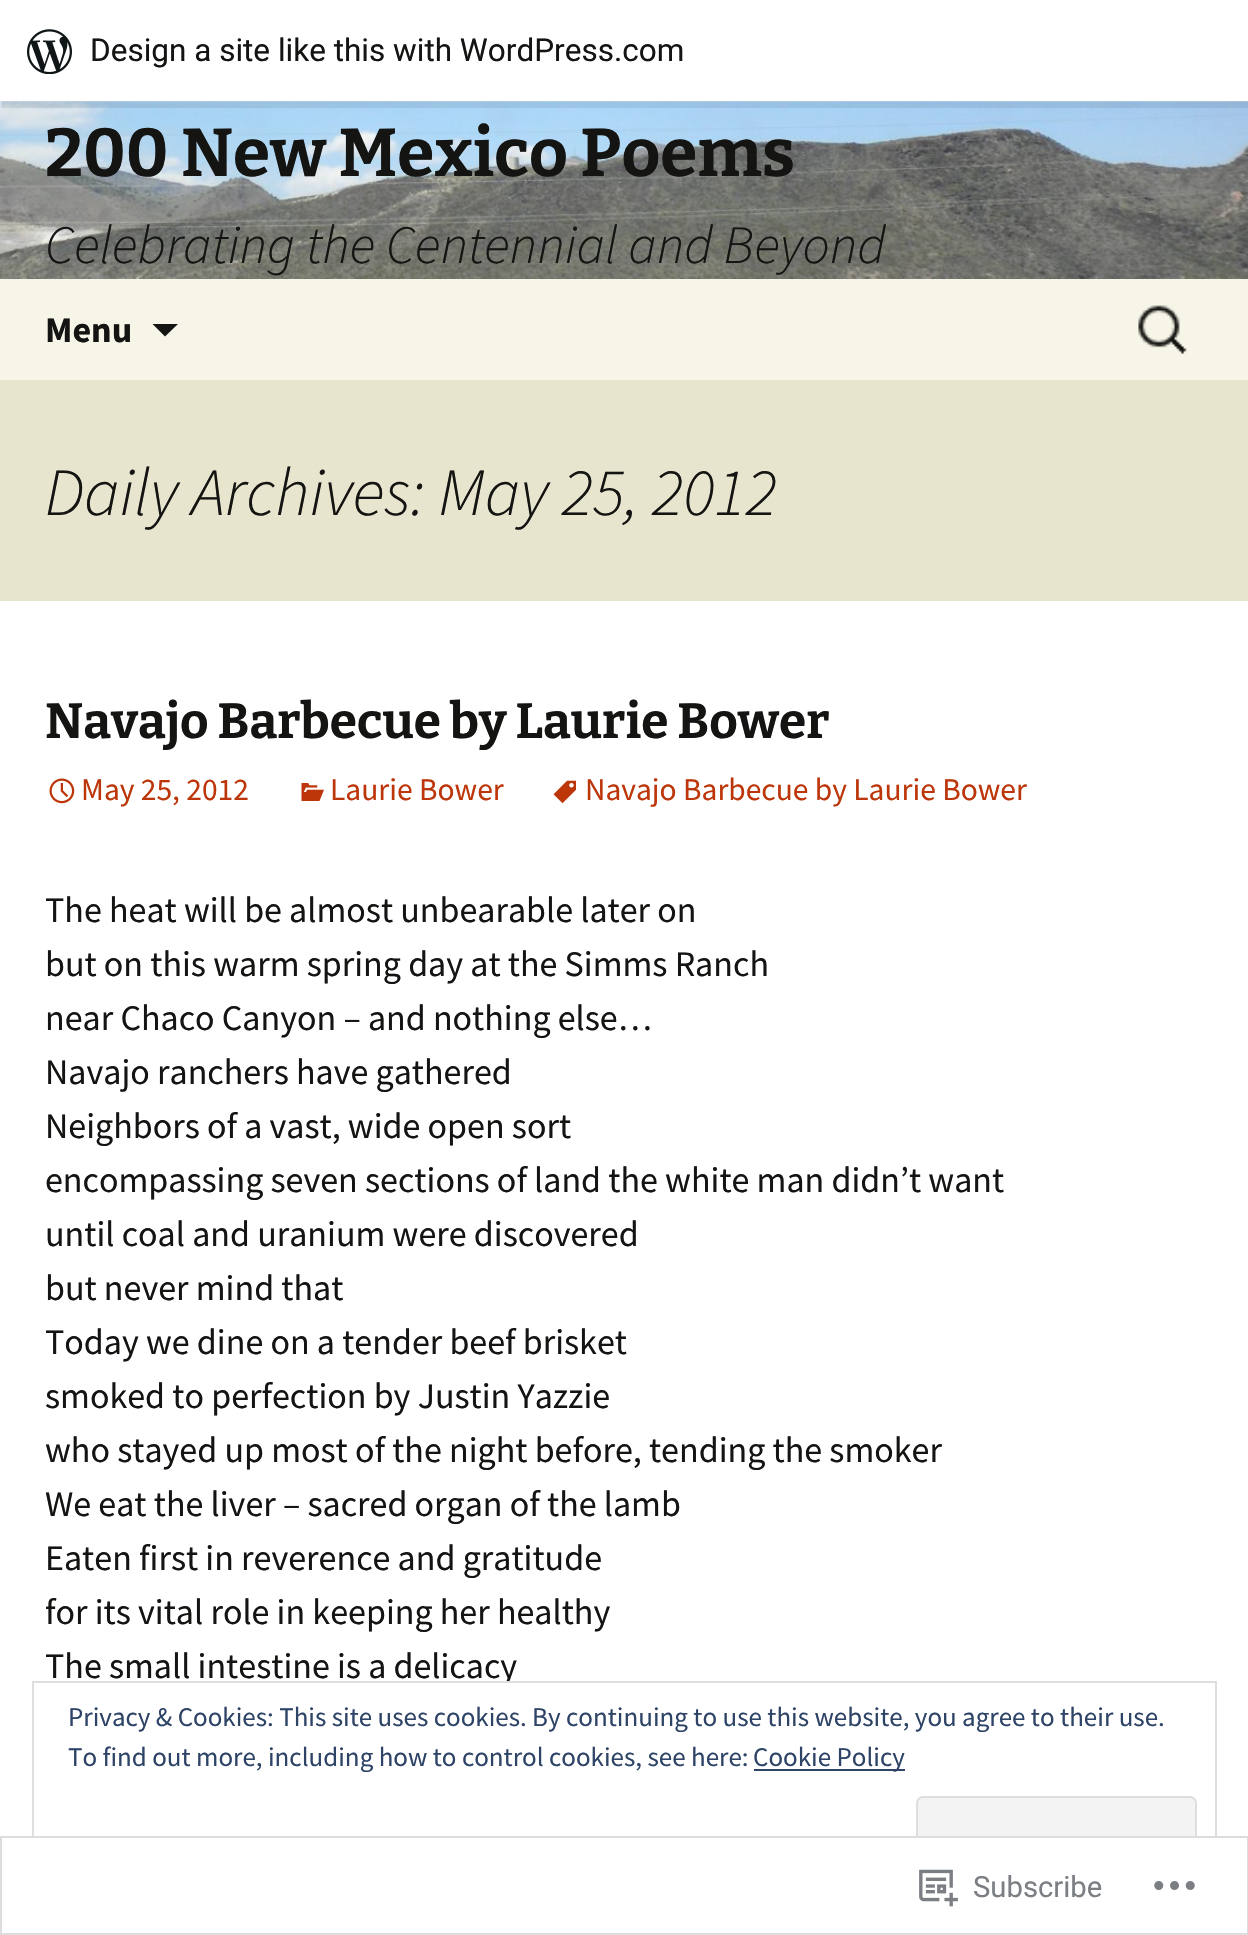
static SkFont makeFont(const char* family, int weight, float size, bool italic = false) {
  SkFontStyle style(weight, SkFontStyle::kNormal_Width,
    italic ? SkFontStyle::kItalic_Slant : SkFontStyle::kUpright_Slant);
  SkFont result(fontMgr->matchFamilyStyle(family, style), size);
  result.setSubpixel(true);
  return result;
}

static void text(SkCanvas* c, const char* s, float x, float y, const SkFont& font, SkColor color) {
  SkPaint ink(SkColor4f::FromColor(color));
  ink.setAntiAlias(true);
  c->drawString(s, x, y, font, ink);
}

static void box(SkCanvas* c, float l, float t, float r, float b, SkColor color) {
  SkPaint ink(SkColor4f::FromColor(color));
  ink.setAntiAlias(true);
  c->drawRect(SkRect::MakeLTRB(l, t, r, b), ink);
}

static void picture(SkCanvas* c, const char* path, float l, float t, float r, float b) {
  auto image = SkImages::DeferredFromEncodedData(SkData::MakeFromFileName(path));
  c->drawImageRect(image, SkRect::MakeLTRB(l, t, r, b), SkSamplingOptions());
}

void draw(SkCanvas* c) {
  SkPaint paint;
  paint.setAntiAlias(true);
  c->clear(0xffffffff);
  picture(c, "img_02.png", 0, 101, 1248, 279);
  paint.setColor(0x14000000);
  c->drawPath(SkPathBuilder().moveTo(2, 101).lineTo(2, 108).lineTo(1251, 108).lineTo(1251, 7).lineTo(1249, 7).lineTo(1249, 101).close().detach(), paint);
  picture(c, "img_01.png", 27, 29, 72, 74);
  SkFont face1 = makeFont("Roboto", 400, 31.5f);
  text(c, "Design a site like this with WordPress.com", 90, 61, face1, 0xff141412);
  SkFont face2 = makeFont("Bitter", 700, 67.5f);
  text(c, "200 New Mexico Poems", 45, 176, face2, 0xff141412);
  SkFont face3 = makeFont("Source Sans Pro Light", 300, 54, true);
  text(c, "Celebrating the Centennial and Beyond", 45, 263, face3, 0xff141412);
  box(c, 0, 279, 1248, 380, 0xfff7f5e7);
  SkFont face4 = makeFont("Source Sans Pro", 700, 36);
  text(c, "Menu", 45, 342, face4, 0xff141412);
  paint.setColor(0xff141412);
  c->drawPath(SkPathBuilder().moveTo(152.5f, 324).lineTo(178, 324).lineTo(165, 336.5f).close().detach(), paint);
  picture(c, "img_03.png", 1138, 305, 1187, 354);
  box(c, 0, 380, 1248, 601, 0xffe8e5ce);
  SkFont face5 = makeFont("Source Sans Pro Light", 300, 67.5f, true);
  text(c, "Daily Archives: May 25, 2012", 45, 515, face5, 0xff141412);
  SkFont face6 = makeFont("Bitter", 700, 49.5f);
  text(c, "Navajo Barbecue by Laurie Bower", 45, 738, face6, 0xff141412);
  picture(c, "img_04.png", 49, 778, 75, 804);
  SkFont face7 = makeFont("Source Sans Pro", 400, 31.5f);
  text(c, "May 25, 2012", 81, 800, face7, 0xffbc360a);
  picture(c, "img_05.png", 301, 783, 324, 801);
  text(c, "Laurie Bower", 330, 800, face7, 0xffbc360a);
  picture(c, "img_06.png", 553, 780, 576, 804);
  text(c, "Navajo Barbecue by Laurie Bower", 585, 800, face7, 0xffbc360a);
  SkFont face8 = makeFont("Source Sans Pro", 400, 36);
  text(c, "The heat will be almost unbearable later on", 45, 922, face8, 0xff141412);
  text(c, "but on this warm spring day at the Simms Ranch", 45, 976, face8, 0xff141412);
  text(c, "near Chaco Canyon – and nothing else…", 45, 1030, face8, 0xff141412);
  text(c, "Navajo ranchers have gathered", 45, 1084, face8, 0xff141412);
  text(c, "Neighbors of a vast, wide open sort", 45, 1138, face8, 0xff141412);
  text(c, "encompassing seven sections of land the white man didn’t want", 45, 1192, face8, 0xff141412);
  text(c, "until coal and uranium were discovered", 45, 1246, face8, 0xff141412);
  text(c, "but never mind that", 45, 1300, face8, 0xff141412);
  text(c, "Today we dine on a tender beef brisket", 45, 1354, face8, 0xff141412);
  text(c, "smoked to perfection by Justin Yazzie", 45, 1408, face8, 0xff141412);
  text(c, "who stayed up most of the night before, tending the smoker", 45, 1462, face8, 0xff141412);
  text(c, "We eat the liver – sacred organ of the lamb", 45, 1516, face8, 0xff141412);
  text(c, "Eaten first in reverence and gratitude", 45, 1570, face8, 0xff141412);
  text(c, "for its vital role in keeping her healthy", 45, 1624, face8, 0xff141412);
  text(c, "The small intestine is a delicacy", 45, 1678, face8, 0xff141412);
  box(c, 501, 1683, 509, 1686, 0xffffffff);
  paint.setStyle(SkPaint::kStroke_Style);
  paint.setStrokeWidth(2);
  paint.setColor(0xffdedede);
  c->drawRect(SkRect::MakeLTRB(33, 1682, 1216, 1903), paint);
  SkFont face9 = makeFont("Source Sans Pro", 400, 27);
  text(c, "Privacy & Cookies: This site uses cookies. By continuing to use this website, you agree to their use.", 68, 1726, face9, 0xff2e4467);
  text(c, "To find out more, including how to control cookies, see here:", 68, 1766, face9, 0xff2e4467);
  box(c, 754, 1769, 905, 1771, 0xff2e4467);
  text(c, "Cookie Policy", 753, 1766, face9, 0xff2e4467);
  paint.setStyle(SkPaint::kFill_Style);
  paint.setColor(0xfff3f3f3);
  c->drawRoundRect(SkRect::MakeLTRB(917, 1797, 1196, 1882), 6, 6, paint);
  paint.setStyle(SkPaint::kStroke_Style);
  paint.setColor(0xffdedede);
  c->drawRoundRect(SkRect::MakeLTRB(917, 1797, 1196, 1882), 6, 6, paint);
  box(c, 32, 1836, 1217, 1904, 0xfaffffff);
  paint.setColor(0xfadcdcde);
  c->drawRect(SkRect::MakeLTRB(1, 1837, 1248, 1934), paint);
  picture(c, "img_07.png", 919, 1869, 958, 1907);
  SkFont face10 = makeFont("Roboto", 400, 29.25f);
  text(c, "Subscribe", 973, 1897, face10, 0xff7b7f84);
  picture(c, "img_08.png", 1154, 1881, 1195, 1890);
}
